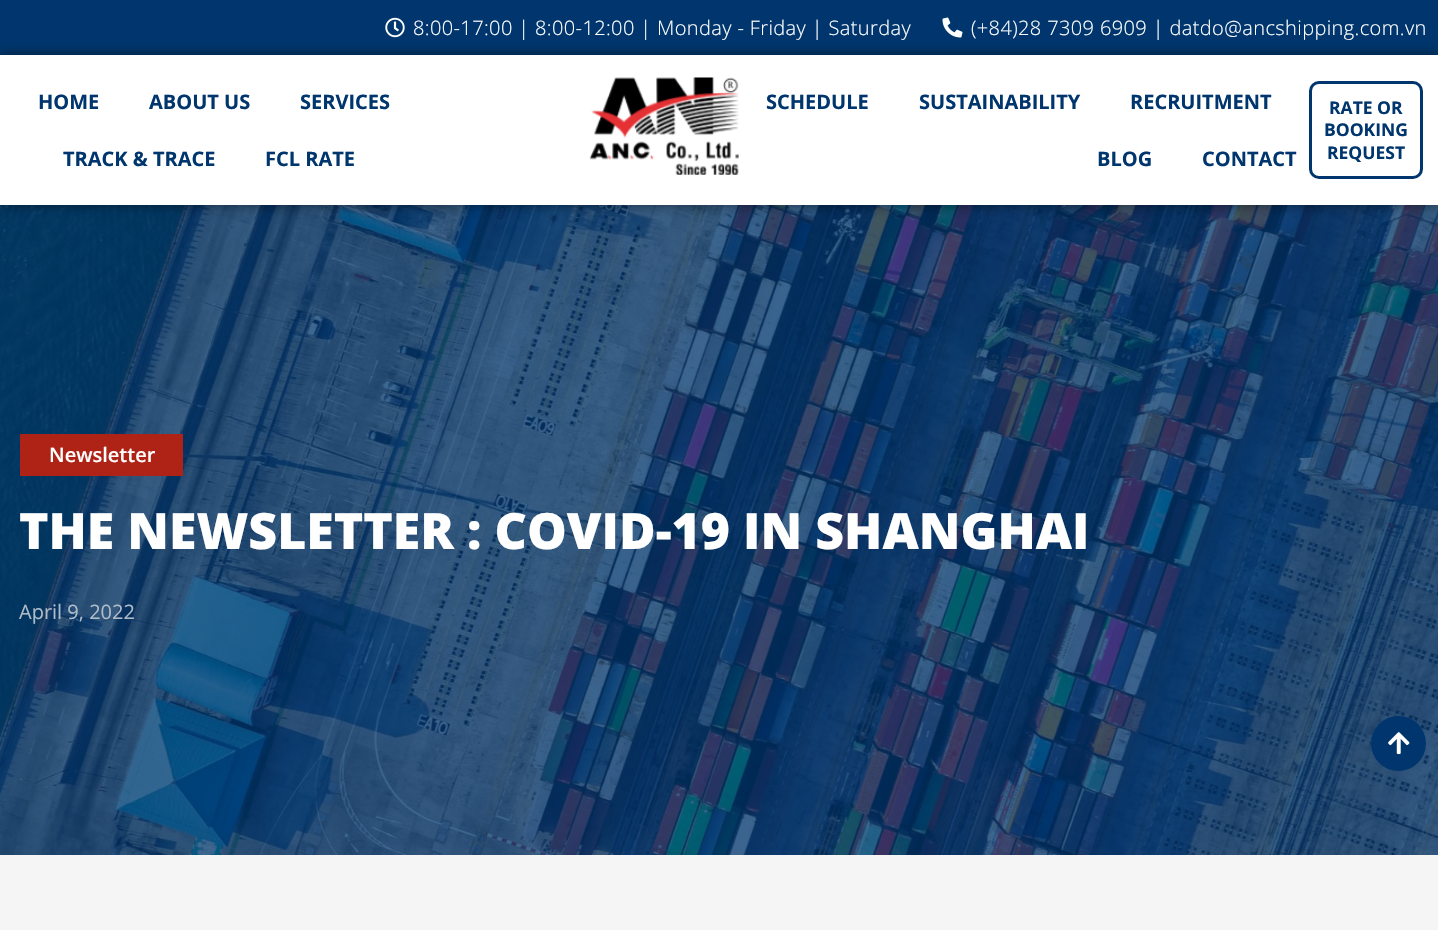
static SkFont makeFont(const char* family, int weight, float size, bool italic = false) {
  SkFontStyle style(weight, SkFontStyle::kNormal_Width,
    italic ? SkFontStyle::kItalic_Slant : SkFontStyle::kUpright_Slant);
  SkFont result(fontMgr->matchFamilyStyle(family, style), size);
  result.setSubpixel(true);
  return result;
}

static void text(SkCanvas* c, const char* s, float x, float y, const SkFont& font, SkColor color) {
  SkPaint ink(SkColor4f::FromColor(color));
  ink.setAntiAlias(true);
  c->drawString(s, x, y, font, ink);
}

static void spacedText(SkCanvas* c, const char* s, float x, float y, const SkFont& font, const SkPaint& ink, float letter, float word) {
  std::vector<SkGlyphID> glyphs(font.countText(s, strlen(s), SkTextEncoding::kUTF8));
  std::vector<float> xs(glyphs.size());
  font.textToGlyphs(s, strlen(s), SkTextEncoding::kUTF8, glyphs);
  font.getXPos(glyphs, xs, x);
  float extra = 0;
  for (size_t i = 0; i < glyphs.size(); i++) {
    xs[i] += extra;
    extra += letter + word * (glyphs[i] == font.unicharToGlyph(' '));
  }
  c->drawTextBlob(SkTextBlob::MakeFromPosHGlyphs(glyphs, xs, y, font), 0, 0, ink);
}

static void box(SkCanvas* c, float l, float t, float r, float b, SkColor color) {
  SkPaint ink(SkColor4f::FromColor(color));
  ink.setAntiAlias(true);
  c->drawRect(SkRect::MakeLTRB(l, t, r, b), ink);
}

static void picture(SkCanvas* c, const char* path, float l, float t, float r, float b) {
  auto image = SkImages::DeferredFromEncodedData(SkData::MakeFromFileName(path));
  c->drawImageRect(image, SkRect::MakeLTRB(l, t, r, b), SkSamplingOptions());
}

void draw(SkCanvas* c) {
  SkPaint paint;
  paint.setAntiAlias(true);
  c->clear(0xffffffff);
  box(c, 0, 0, 1438, 55, 0xff00366d);
  picture(c, "img_01.png", 385, 17, 405, 38);
  SkFont face1 = makeFont("Open Sans", 300, 20);
  paint.setColor(0xffffffff);
  spacedText(c, "8:00-17:00 | 8:00-12:00 | Monday - Friday | Saturday", 413, 35, face1, paint, 0.38f, 0);
  picture(c, "img_02.png", 942, 17, 963, 38);
  spacedText(c, "(+84)28 7309 6909 | datdo@ancshipping.com.vn", 971, 35, face1, paint, 0.38f, 0);
  picture(c, "img_04.png", 0, 205, 1438, 855);
  c->save();
  c->clipPath(SkPathBuilder(SkPathFillType::kEvenOdd).moveTo(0, 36).lineTo(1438, 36).lineTo(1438, 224).lineTo(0, 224).close().moveTo(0, 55).lineTo(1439, 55).lineTo(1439, 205).lineTo(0, 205).close().detach(), true);
  paint.setColor(0x80000000);
  paint.setMaskFilter(SkMaskFilter::MakeBlur(kNormal_SkBlurStyle, 6));
  c->drawRect(SkRect::MakeLTRB(0, 55, 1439, 205), paint);
  paint.setMaskFilter(nullptr);
  c->restore();
  SkFont face2 = makeFont("Open Sans", 700, 20);
  text(c, "HOME", 38, 109, face2, 0xff00366d);
  text(c, "ABOUT US", 149, 109, face2, 0xff00366d);
  text(c, "SERVICES", 300, 109, face2, 0xff00366d);
  text(c, "TRACK & TRACE", 63, 166, face2, 0xff00366d);
  text(c, "FCL RATE", 265, 166, face2, 0xff00366d);
  picture(c, "img_03.png", 589, 77, 739, 175);
  text(c, "SCHEDULE", 766, 109, face2, 0xff00366d);
  text(c, "SUSTAINABILITY", 919, 109, face2, 0xff00366d);
  text(c, "RECRUITMENT", 1130, 109, face2, 0xff00366d);
  text(c, "BLOG", 1097, 166, face2, 0xff00366d);
  text(c, "CONTACT", 1202, 166, face2, 0xff00366d);
  paint.setStyle(SkPaint::kStroke_Style);
  paint.setStrokeWidth(3);
  paint.setColor(0xff00366d);
  c->drawRoundRect(SkRect::MakeLTRB(1310.5f, 82.5f, 1421.5f, 177.5f), 8.5f, 8.5f, paint);
  SkFont face3 = makeFont("Open Sans", 700, 17.5f);
  text(c, "RATE OR", 1329, 114, face3, 0xff00366d);
  text(c, "BOOKING", 1324, 136, face3, 0xff00366d);
  text(c, "REQUEST", 1327, 159, face3, 0xff00366d);
  box(c, 20, 434, 183, 476, 0xffaf2317);
  SkFont face4 = makeFont("Open Sans", 600, 20);
  text(c, "Newsletter", 49, 462, face4, 0xffffffff);
  SkFont face5 = makeFont("Open Sans", 800, 50);
  text(c, "THE NEWSLETTER : COVID-19 IN SHANGHAI", 19, 549, face5, 0xffffffff);
  SkFont face6 = makeFont("Open Sans", 400, 20);
  text(c, "April 9, 2022", 19, 619, face6, 0xffaebcca);
  box(c, 0, 855, 1438, 930, 0xfff6f5f5);
  paint.setStyle(SkPaint::kFill_Style);
  c->drawCircle(1398.5f, 743.5f, 27.5f, paint);
  picture(c, "img_05.png", 1388, 732, 1410, 755);
}
